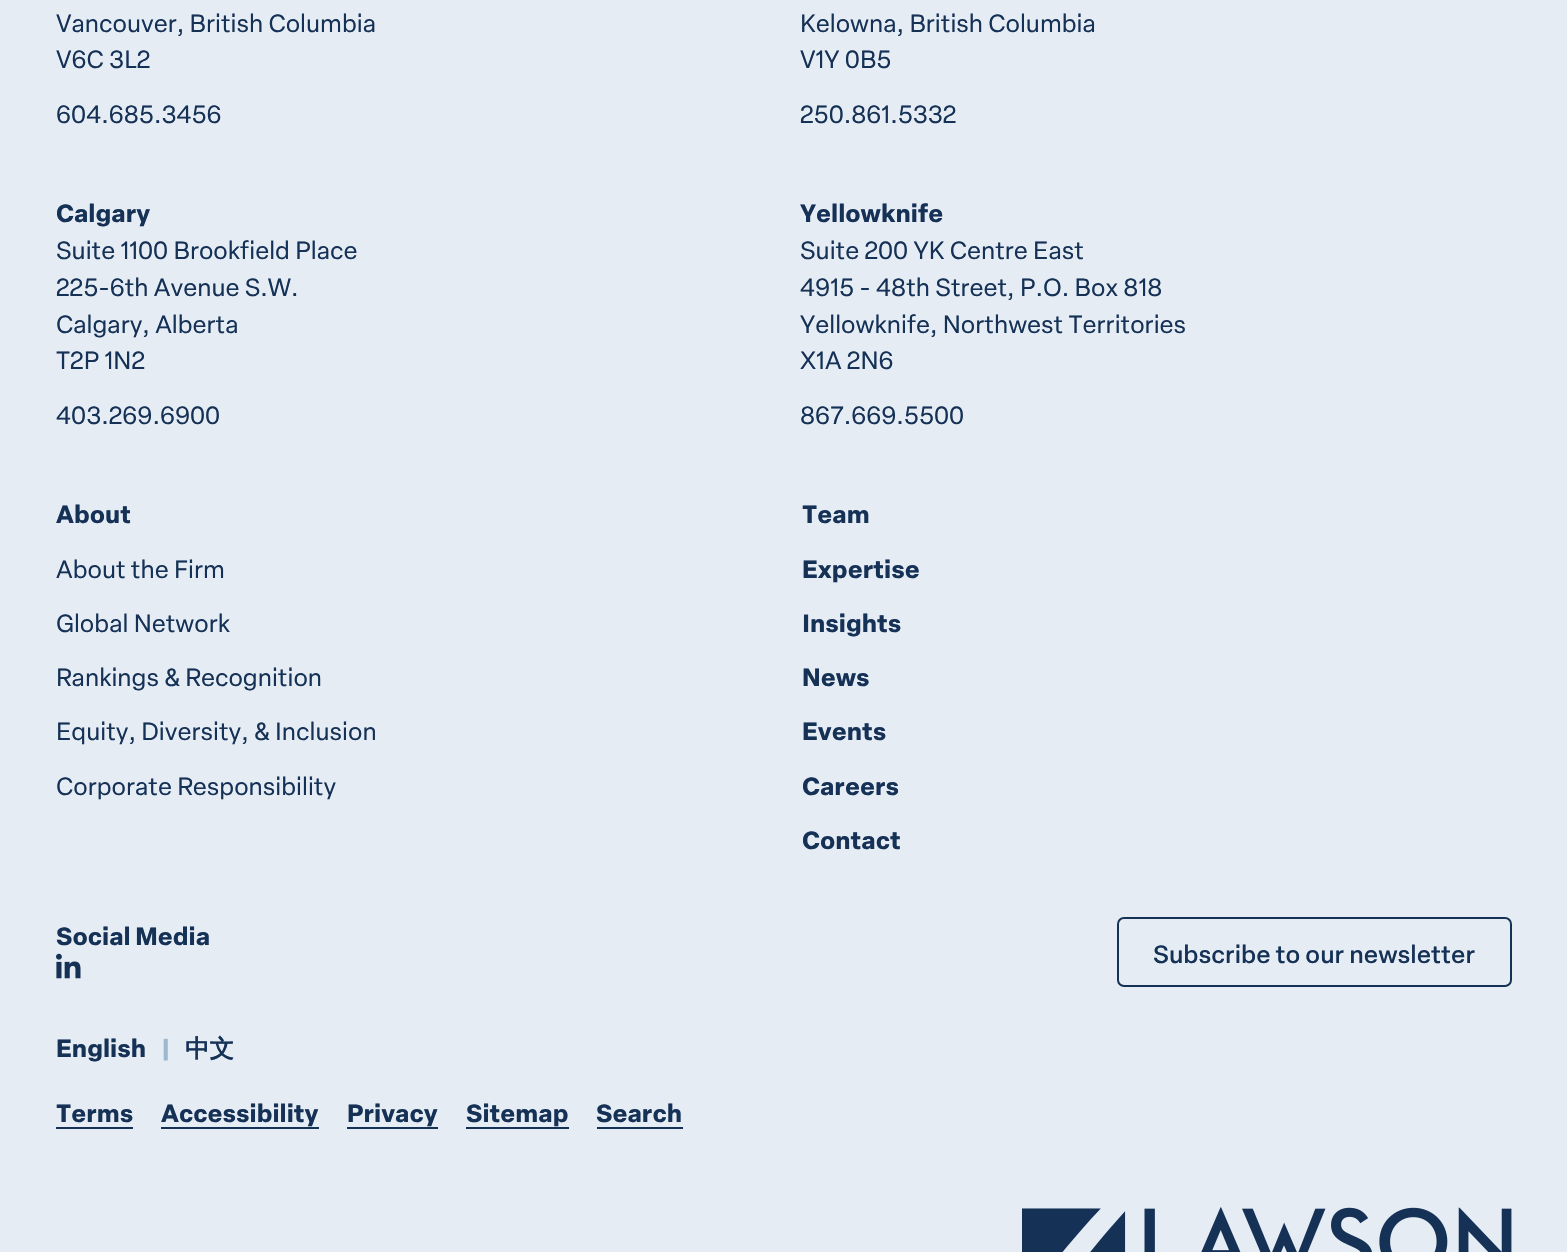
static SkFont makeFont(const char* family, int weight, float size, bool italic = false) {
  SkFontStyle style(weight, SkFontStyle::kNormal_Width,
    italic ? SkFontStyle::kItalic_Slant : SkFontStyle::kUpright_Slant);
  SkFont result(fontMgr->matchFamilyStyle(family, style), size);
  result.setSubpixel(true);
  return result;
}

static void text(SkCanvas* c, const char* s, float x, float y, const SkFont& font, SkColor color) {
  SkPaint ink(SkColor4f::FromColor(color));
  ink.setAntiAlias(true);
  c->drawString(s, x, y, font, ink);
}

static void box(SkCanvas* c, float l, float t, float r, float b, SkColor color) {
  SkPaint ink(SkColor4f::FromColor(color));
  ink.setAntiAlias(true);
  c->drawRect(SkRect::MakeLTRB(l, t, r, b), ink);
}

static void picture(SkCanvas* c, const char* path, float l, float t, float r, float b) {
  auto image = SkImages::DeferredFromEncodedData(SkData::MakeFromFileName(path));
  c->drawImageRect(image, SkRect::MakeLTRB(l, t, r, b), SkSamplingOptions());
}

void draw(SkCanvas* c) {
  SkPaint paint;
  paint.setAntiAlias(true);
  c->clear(0xffe5ecf4);
  SkFont face1 = makeFont("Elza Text", 400, 24.5f);
  text(c, "Vancouver, British Columbia", 56, 32, face1, 0xff153156);
  text(c, "V6C 3L2", 56, 68, face1, 0xff153156);
  text(c, "604.685.3456", 56, 123, face1, 0xff153156);
  text(c, "Kelowna, British Columbia", 800, 32, face1, 0xff153156);
  text(c, "V1Y 0B5", 800, 68, face1, 0xff153156);
  text(c, "250.861.5332", 800, 123, face1, 0xff153156);
  SkFont face2 = makeFont("Elza Text", 700, 24.5f);
  text(c, "Calgary", 56, 222, face2, 0xff153156);
  text(c, "Suite 1100 Brookfield Place", 56, 259, face1, 0xff153156);
  text(c, "225-6th Avenue S.W.", 56, 296, face1, 0xff153156);
  text(c, "Calgary, Alberta", 56, 333, face1, 0xff153156);
  text(c, "T2P 1N2", 56, 369, face1, 0xff153156);
  text(c, "403.269.6900", 56, 424, face1, 0xff153156);
  text(c, "Yellowknife", 800, 222, face2, 0xff153156);
  text(c, "Suite 200 YK Centre East", 800, 259, face1, 0xff153156);
  text(c, "4915 - 48th Street, P.O. Box 818", 800, 296, face1, 0xff153156);
  text(c, "Yellowknife, Northwest Territories", 800, 333, face1, 0xff153156);
  text(c, "X1A 2N6", 800, 369, face1, 0xff153156);
  text(c, "867.669.5500", 800, 424, face1, 0xff153156);
  text(c, "About", 56, 523, face2, 0xff153156);
  text(c, "About the Firm", 56, 578, face1, 0xff153156);
  text(c, "Global Network", 56, 632, face1, 0xff153156);
  text(c, "Rankings & Recognition", 56, 686, face1, 0xff153156);
  text(c, "Equity, Diversity, & Inclusion", 56, 740, face1, 0xff153156);
  text(c, "Corporate Responsibility", 56, 795, face1, 0xff153156);
  text(c, "Team", 802, 523, face2, 0xff153156);
  text(c, "Expertise", 802, 578, face2, 0xff153156);
  text(c, "Insights", 802, 632, face2, 0xff153156);
  text(c, "News", 802, 686, face2, 0xff153156);
  text(c, "Events", 802, 740, face2, 0xff153156);
  text(c, "Careers", 802, 795, face2, 0xff153156);
  text(c, "Contact", 802, 849, face2, 0xff153156);
  text(c, "Social Media", 56, 945, face2, 0xff153156);
  picture(c, "img_01.png", 56, 953, 81, 979);
  paint.setStyle(SkPaint::kStroke_Style);
  paint.setStrokeWidth(2);
  paint.setColor(0xff153156);
  c->drawRoundRect(SkRect::MakeLTRB(1118, 918, 1511, 986), 6, 6, paint);
  SkFont face3 = makeFont("Elza Text", 500, 24.5f);
  text(c, "Subscribe to our newsletter", 1153, 963, face3, 0xff153156);
  text(c, "English", 56, 1057, face2, 0xff153156);
  text(c, "|", 160, 1057, face2, 0xff9bb8d3);
  SkFont face4 = makeFont("WenQuanYi Zen Hei", 700, 24.5f);
  text(c, "中文", 185, 1057, face4, 0xff153156);
  text(c, "Terms", 56, 1122, face2, 0xff153156);
  box(c, 56, 1127, 133, 1129, 0xff153156);
  text(c, "Accessibility", 161, 1122, face2, 0xff153156);
  box(c, 161, 1127, 319, 1129, 0xff153156);
  text(c, "Privacy", 347, 1122, face2, 0xff153156);
  box(c, 347, 1127, 438, 1129, 0xff153156);
  text(c, "Sitemap", 466, 1122, face2, 0xff153156);
  box(c, 466, 1127, 569, 1129, 0xff153156);
  text(c, "Search", 596, 1122, face2, 0xff153156);
  box(c, 597, 1127, 683, 1129, 0xff153156);
  picture(c, "img_02.png", 1022, 1207, 1512, 1252);
}
